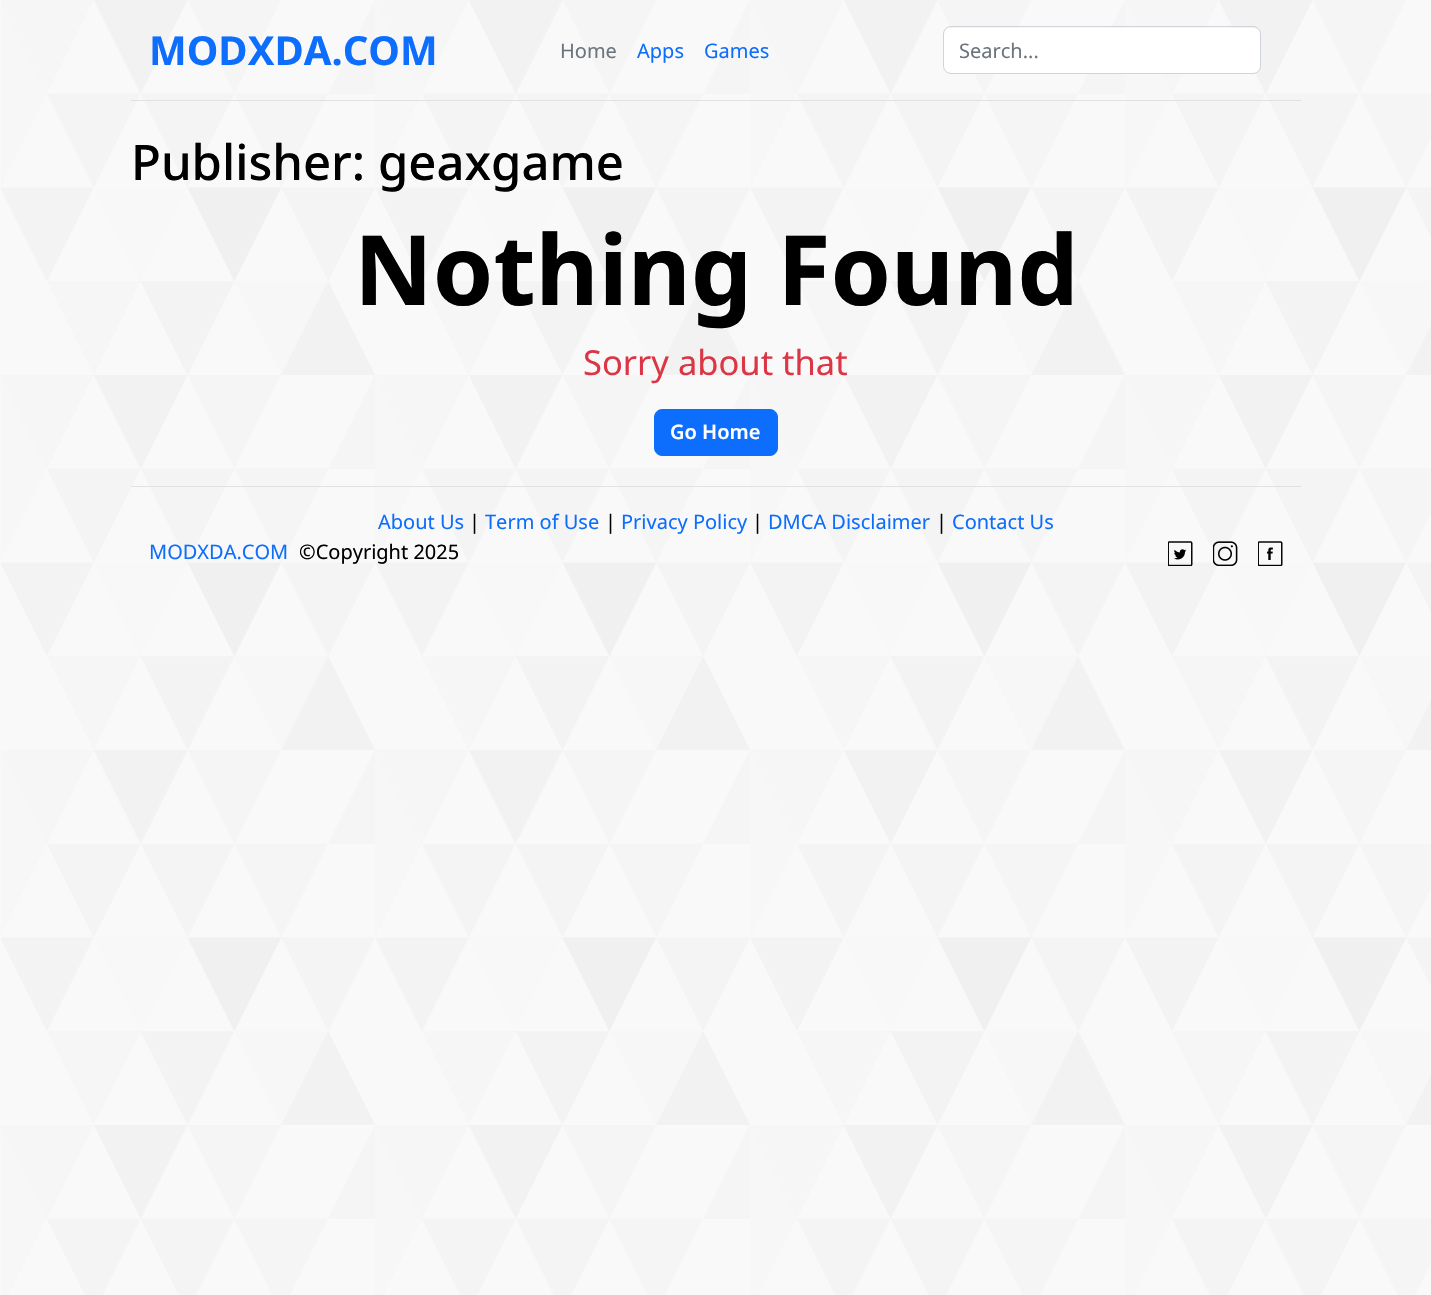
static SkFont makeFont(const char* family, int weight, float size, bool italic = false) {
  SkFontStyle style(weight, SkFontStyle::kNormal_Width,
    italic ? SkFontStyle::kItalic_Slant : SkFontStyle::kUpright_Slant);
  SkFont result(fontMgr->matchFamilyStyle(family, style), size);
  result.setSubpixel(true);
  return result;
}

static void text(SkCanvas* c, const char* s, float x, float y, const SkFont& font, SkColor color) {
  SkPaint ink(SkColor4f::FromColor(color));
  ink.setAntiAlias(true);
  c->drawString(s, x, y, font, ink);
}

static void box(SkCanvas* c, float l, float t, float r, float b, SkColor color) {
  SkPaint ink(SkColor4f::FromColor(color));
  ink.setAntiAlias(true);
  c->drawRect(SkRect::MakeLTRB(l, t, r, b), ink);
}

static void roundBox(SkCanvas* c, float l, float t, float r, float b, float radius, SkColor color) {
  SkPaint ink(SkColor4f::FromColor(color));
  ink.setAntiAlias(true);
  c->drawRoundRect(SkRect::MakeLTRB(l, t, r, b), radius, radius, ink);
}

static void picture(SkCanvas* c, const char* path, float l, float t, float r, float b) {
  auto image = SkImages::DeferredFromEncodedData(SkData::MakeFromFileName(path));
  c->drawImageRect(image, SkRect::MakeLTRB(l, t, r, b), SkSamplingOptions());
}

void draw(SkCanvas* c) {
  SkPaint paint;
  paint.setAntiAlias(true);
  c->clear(0xfff9f9f9);
  picture(c, "img_01.png", 1, 0, 1431, 1295);
  box(c, 131, 100, 1301, 101, 0xffdee2e6);
  SkFont face1 = makeFont("Noto Sans", 700, 40);
  text(c, "MODXDA.COM", 149, 65, face1, 0xff0d6efd);
  SkFont face2 = makeFont("Noto Sans", 400, 20);
  text(c, "Home", 560, 58, face2, 0xff6c757d);
  text(c, "Apps", 637, 58, face2, 0xff0d6efd);
  text(c, "Games", 704, 58, face2, 0xff0d6efd);
  roundBox(c, 944, 28, 1260, 73, 6, 0xffffffff);
  paint.setStyle(SkPaint::kStroke_Style);
  paint.setStrokeWidth(1);
  paint.setColor(0xffced4da);
  c->drawRoundRect(SkRect::MakeLTRB(943.5f, 26.5f, 1260.5f, 73.5f), 7.5f, 7.5f, paint);
  text(c, "Search...", 959, 58, face2, 0xff6c757d);
  SkFont face3 = makeFont("Noto Sans", 500, 49);
  text(c, "Publisher: geaxgame", 131, 180, face3, 0xff000000);
  SkFont face4 = makeFont("Noto Sans", 700, 97);
  text(c, "Nothing Found", 354, 305, face4, 0xff000000);
  SkFont face5 = makeFont("Noto Sans", 400, 34.5f);
  text(c, "Sorry about that", 583, 375, face5, 0xffdc3545);
  paint.setStyle(SkPaint::kFill_Style);
  paint.setColor(0xff0d6efd);
  c->drawRoundRect(SkRect::MakeLTRB(654.5f, 409.5f, 777.5f, 455.5f), 7.5f, 7.5f, paint);
  paint.setStyle(SkPaint::kStroke_Style);
  c->drawRoundRect(SkRect::MakeLTRB(654.5f, 409.5f, 777.5f, 455.5f), 7.5f, 7.5f, paint);
  SkFont face6 = makeFont("Noto Sans", 600, 20);
  text(c, "Go Home", 670, 439, face6, 0xffffffff);
  box(c, 131, 486, 1301, 487, 0xffdee2e6);
  text(c, "About Us", 378, 529, face2, 0xff0d6efd);
  text(c, "|", 469, 529, face2, 0xff000000);
  text(c, "Term of Use", 485, 529, face2, 0xff0d6efd);
  text(c, "|", 605, 529, face2, 0xff000000);
  text(c, "Privacy Policy", 621, 529, face2, 0xff0d6efd);
  text(c, "|", 752, 529, face2, 0xff000000);
  text(c, "DMCA Disclaimer", 768, 529, face2, 0xff0d6efd);
  text(c, "|", 936, 529, face2, 0xff000000);
  text(c, "Contact Us", 952, 529, face2, 0xff0d6efd);
  text(c, "MODXDA.COM", 149, 559, face2, 0xff0d6efd);
  text(c, "©Copyright 2025", 299, 559, face2, 0xff000000);
  picture(c, "img_02.png", 1168, 541, 1193, 566);
  picture(c, "img_03.png", 1213, 541, 1238, 566);
  picture(c, "img_04.png", 1258, 541, 1283, 566);
}
